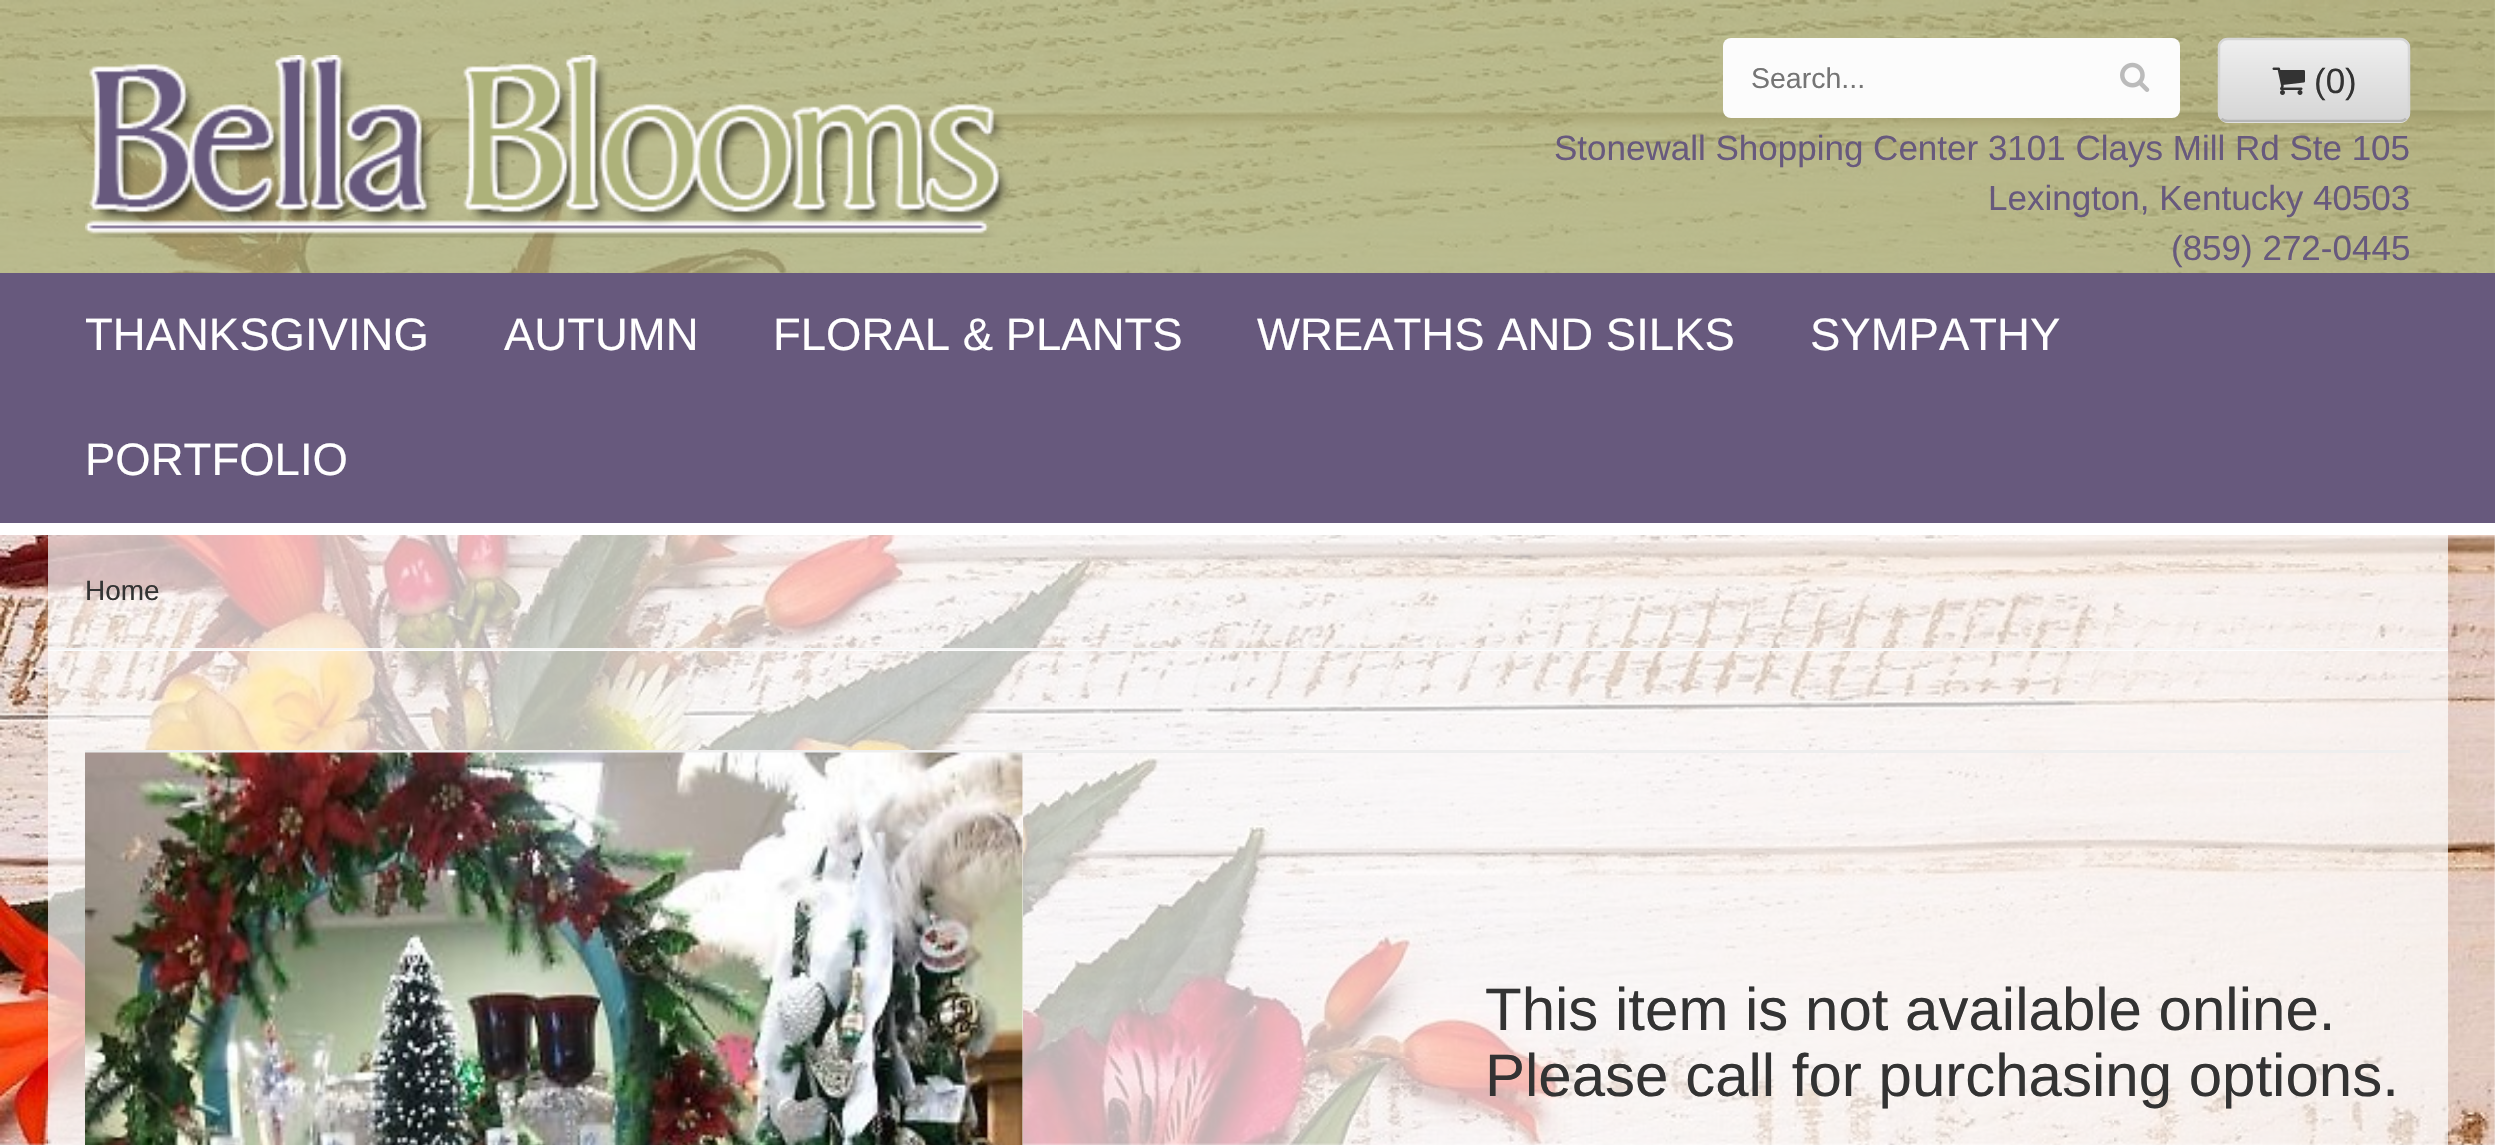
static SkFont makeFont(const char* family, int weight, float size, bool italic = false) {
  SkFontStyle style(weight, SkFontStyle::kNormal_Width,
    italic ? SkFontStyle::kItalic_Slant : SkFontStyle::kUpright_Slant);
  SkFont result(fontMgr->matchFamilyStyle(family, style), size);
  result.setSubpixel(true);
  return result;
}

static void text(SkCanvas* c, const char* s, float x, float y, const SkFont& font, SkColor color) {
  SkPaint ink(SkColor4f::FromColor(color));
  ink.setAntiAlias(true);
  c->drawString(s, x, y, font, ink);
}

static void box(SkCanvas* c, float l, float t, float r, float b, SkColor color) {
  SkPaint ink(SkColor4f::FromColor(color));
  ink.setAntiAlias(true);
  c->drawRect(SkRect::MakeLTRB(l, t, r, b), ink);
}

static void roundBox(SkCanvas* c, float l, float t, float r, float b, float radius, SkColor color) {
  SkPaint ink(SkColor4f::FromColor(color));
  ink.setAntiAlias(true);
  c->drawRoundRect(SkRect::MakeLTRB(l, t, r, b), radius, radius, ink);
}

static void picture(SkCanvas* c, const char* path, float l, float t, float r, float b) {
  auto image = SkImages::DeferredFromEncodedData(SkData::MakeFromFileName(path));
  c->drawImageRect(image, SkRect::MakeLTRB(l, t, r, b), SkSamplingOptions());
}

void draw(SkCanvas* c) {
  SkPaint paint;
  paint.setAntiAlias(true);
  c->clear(0xffffffff);
  picture(c, "img_01.png", 0, 0, 2495, 1145);
  box(c, 0, 0, 2495, 273, 0xccadb27a);
  picture(c, "img_02.png", 85, 55, 1010, 238);
  roundBox(c, 1723, 38, 2180, 118, 8, 0xfffcfcfc);
  SkFont face1 = makeFont("Liberation Sans", 400, 28.5f);
  text(c, "Search...", 1751, 88, face1, 0xff757575);
  picture(c, "img_03.png", 2120, 62, 2150, 92);
  c->save();
  c->clipPath(SkPathBuilder().moveTo(2228, 38).lineTo(2400, 38).cubicTo(2405.5f, 38, 2410, 42.5f, 2410, 48).lineTo(2410, 113).cubicTo(2410, 118.5f, 2405.5f, 123, 2400, 123).lineTo(2228, 123).cubicTo(2222.5f, 123, 2218, 118.5f, 2218, 113).lineTo(2218, 48).cubicTo(2218, 42.5f, 2222.5f, 38, 2228, 38).close().detach(), true);
  {
    const SkColor colors[] = {0xffeeeeee, 0xffd6d6d6};
    const float stops[] = {0, 1};
    const SkPoint ends[] = {{2314, 40}, {2314, 120}};
    paint.setShader(SkGradientShader::MakeLinear(ends, colors, stops, 2, SkTileMode::kClamp));
    paint.setAlpha(255);
  }
  c->drawRect(SkRect::MakeLTRB(2218, 40, 2410, 120), paint);
  {
    const SkColor colors[] = {0xffeeeeee, 0xffd6d6d6};
    const float stops[] = {0, 1};
    const SkPoint ends[] = {{2314, 120}, {2314, 200}};
    paint.setShader(SkGradientShader::MakeLinear(ends, colors, stops, 2, SkTileMode::kClamp));
    paint.setAlpha(255);
  }
  c->drawRect(SkRect::MakeLTRB(2218, 120, 2410, 123), paint);
  c->restore();
  paint.setStyle(SkPaint::kStroke_Style);
  paint.setStrokeWidth(2.5f);
  paint.setShader(nullptr);
  paint.setColor(0xffb6b6b6);
  c->drawPath(SkPathBuilder().moveTo(2406, 118.5f).cubicTo(2404.5f, 120.5f, 2402.5f, 121, 2400, 121).lineTo(2227.5f, 121).cubicTo(2225, 121, 2223, 120.5f, 2221.5f, 118.5f).detach(), paint);
  paint.setColor(0xffd6d6d6);
  c->drawPath(SkPathBuilder().moveTo(2221.5f, 118.5f).cubicTo(2219.5f, 117, 2219, 115, 2219, 112.5f).lineTo(2219, 47.5f).cubicTo(2219, 45, 2219.5f, 43, 2221.5f, 41.5f).cubicTo(2223, 39.5f, 2225, 39, 2227.5f, 39).lineTo(2400, 39).cubicTo(2402.5f, 39, 2404.5f, 39.5f, 2406, 41.5f).cubicTo(2408, 43, 2409, 45, 2409, 47.5f).lineTo(2409, 112.5f).cubicTo(2409, 115, 2408, 117, 2406, 118.5f).detach(), paint);
  picture(c, "img_04.png", 2272, 67, 2305, 95);
  SkFont face2 = makeFont("Liberation Sans", 400, 35);
  text(c, "(0)", 2314, 93, face2, 0xff333333);
  text(c, "Stonewall Shopping Center 3101 Clays Mill Rd Ste 105", 1554, 160, face2, 0xff67597d);
  text(c, "Lexington, Kentucky 40503", 1988, 210, face2, 0xff67597d);
  text(c, "(859) 272-0445", 2171, 260, face2, 0xff67597d);
  box(c, 0, 273, 2495, 523, 0xff67597d);
  box(c, 0, 523, 2495, 535, 0xffffffff);
  SkFont face3 = makeFont("Liberation Sans", 400, 45.5f);
  text(c, "THANKSGIVING", 85, 350, face3, 0xffffffff);
  text(c, "AUTUMN", 504, 350, face3, 0xffffffff);
  text(c, "FLORAL & PLANTS", 773, 350, face3, 0xffffffff);
  text(c, "WREATHS AND SILKS", 1257, 350, face3, 0xffffffff);
  text(c, "SYMPATHY", 1810, 350, face3, 0xffffffff);
  text(c, "PORTFOLIO", 85, 475, face3, 0xffffffff);
  box(c, 48, 535, 2448, 648, 0xb3ffffff);
  box(c, 48, 648, 2448, 651, 0xfff6f6f6);
  SkFont face4 = makeFont("Liberation Sans", 400, 28);
  text(c, "Home", 85, 600, face4, 0xff333333);
  box(c, 48, 650, 2448, 1145, 0xb3ffffff);
  box(c, 85, 750, 2410, 753, 0xffeeeeee);
  box(c, 1022, 753, 1023, 1145, 0xffffffff);
  picture(c, "img_05.png", 85, 752, 1023, 1145);
  SkFont face5 = makeFont("Liberation Sans", 400, 60);
  text(c, "This item is not available online.", 1485, 1030, face5, 0xff333333);
  text(c, "Please call for purchasing options.", 1485, 1096, face5, 0xff333333);
}
